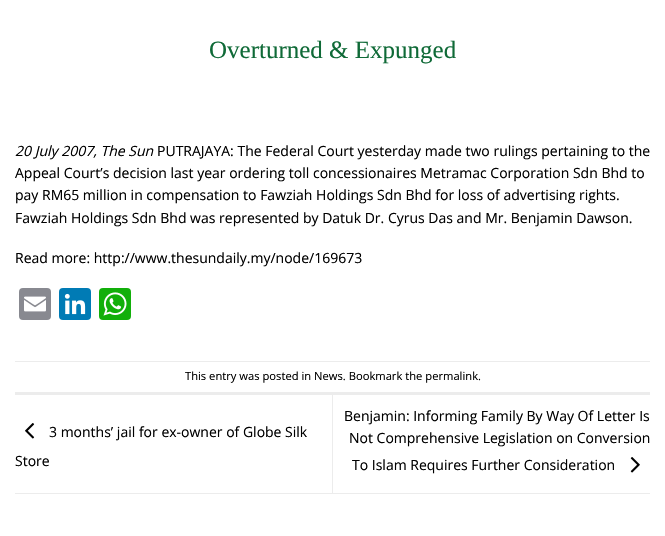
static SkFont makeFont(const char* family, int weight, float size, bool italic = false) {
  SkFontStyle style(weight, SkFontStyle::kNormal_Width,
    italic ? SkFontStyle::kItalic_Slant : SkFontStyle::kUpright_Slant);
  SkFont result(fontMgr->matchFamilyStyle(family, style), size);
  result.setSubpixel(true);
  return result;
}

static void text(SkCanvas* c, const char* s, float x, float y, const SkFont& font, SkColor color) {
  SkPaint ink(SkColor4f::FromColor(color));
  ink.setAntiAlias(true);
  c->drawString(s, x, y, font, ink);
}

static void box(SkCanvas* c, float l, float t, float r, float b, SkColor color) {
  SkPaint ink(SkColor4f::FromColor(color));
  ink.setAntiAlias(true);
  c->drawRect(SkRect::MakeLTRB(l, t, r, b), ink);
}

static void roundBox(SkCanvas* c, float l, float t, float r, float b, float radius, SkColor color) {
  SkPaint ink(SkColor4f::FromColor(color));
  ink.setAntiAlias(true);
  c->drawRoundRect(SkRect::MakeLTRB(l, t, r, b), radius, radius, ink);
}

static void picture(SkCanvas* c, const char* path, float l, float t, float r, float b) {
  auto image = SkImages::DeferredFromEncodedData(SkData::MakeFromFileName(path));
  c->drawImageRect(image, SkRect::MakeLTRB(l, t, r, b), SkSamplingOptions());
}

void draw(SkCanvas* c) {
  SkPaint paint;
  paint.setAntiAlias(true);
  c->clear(0xffffffff);
  SkFont face1 = makeFont("Liberation Serif", 400, 25);
  text(c, "Overturned & Expunged", 209, 58, face1, 0xff0f6a37);
  SkFont face2 = makeFont("Open Sans", 400, 14, true);
  text(c, "20 July 2007, The Sun", 15, 156, face2, 0xff000000);
  SkFont face3 = makeFont("Open Sans", 400, 14);
  text(c, "PUTRAJAYA: The Federal Court yesterday made two rulings pertaining to the", 157, 156, face3, 0xff000000);
  text(c, "Appeal Court’s decision last year ordering toll concessionaires Metramac Corporation Sdn Bhd to", 15, 178, face3, 0xff000000);
  text(c, "pay RM65 million in compensation to Fawziah Holdings Sdn Bhd for loss of advertising rights.", 15, 200, face3, 0xff000000);
  text(c, "Fawziah Holdings Sdn Bhd was represented by Datuk Dr. Cyrus Das and Mr. Benjamin Dawson.", 15, 223, face3, 0xff000000);
  text(c, "Read more: http://www.thesundaily.my/node/169673", 15, 263, face3, 0xff000000);
  roundBox(c, 19, 288, 51, 320, 4, 0xff888990);
  picture(c, "img_01.png", 24, 296, 46, 312);
  roundBox(c, 59, 288, 91, 320, 4, 0xff007bb5);
  picture(c, "img_02.png", 64, 293, 86, 315);
  roundBox(c, 99, 288, 131, 320, 4, 0xff12af0a);
  picture(c, "img_03.png", 103, 292, 127, 316);
  box(c, 15, 361, 650, 362, 0xffececec);
  box(c, 15, 392, 650, 395, 0xffececec);
  SkFont face4 = makeFont("Open Sans", 400, 11.2f);
  text(c, "This entry was posted in News. Bookmark the permalink.", 185, 380, face4, 0xff000000);
  box(c, 15, 493, 650, 494, 0xffececec);
  picture(c, "img_04.png", 25, 423, 35, 439);
  text(c, "3 months’ jail for ex-owner of Globe Silk", 49, 437, face3, 0xff000000);
  text(c, "Store", 15, 466, face3, 0xff000000);
  box(c, 332, 395, 333, 493, 0xffececec);
  text(c, "Benjamin: Informing Family By Way Of Letter Is", 344, 421, face3, 0xff000000);
  text(c, "Not Comprehensive Legislation on Conversion", 349, 443, face3, 0xff000000);
  text(c, "To Islam Requires Further Consideration", 352, 470, face3, 0xff000000);
  picture(c, "img_05.png", 630, 457, 640, 473);
}
